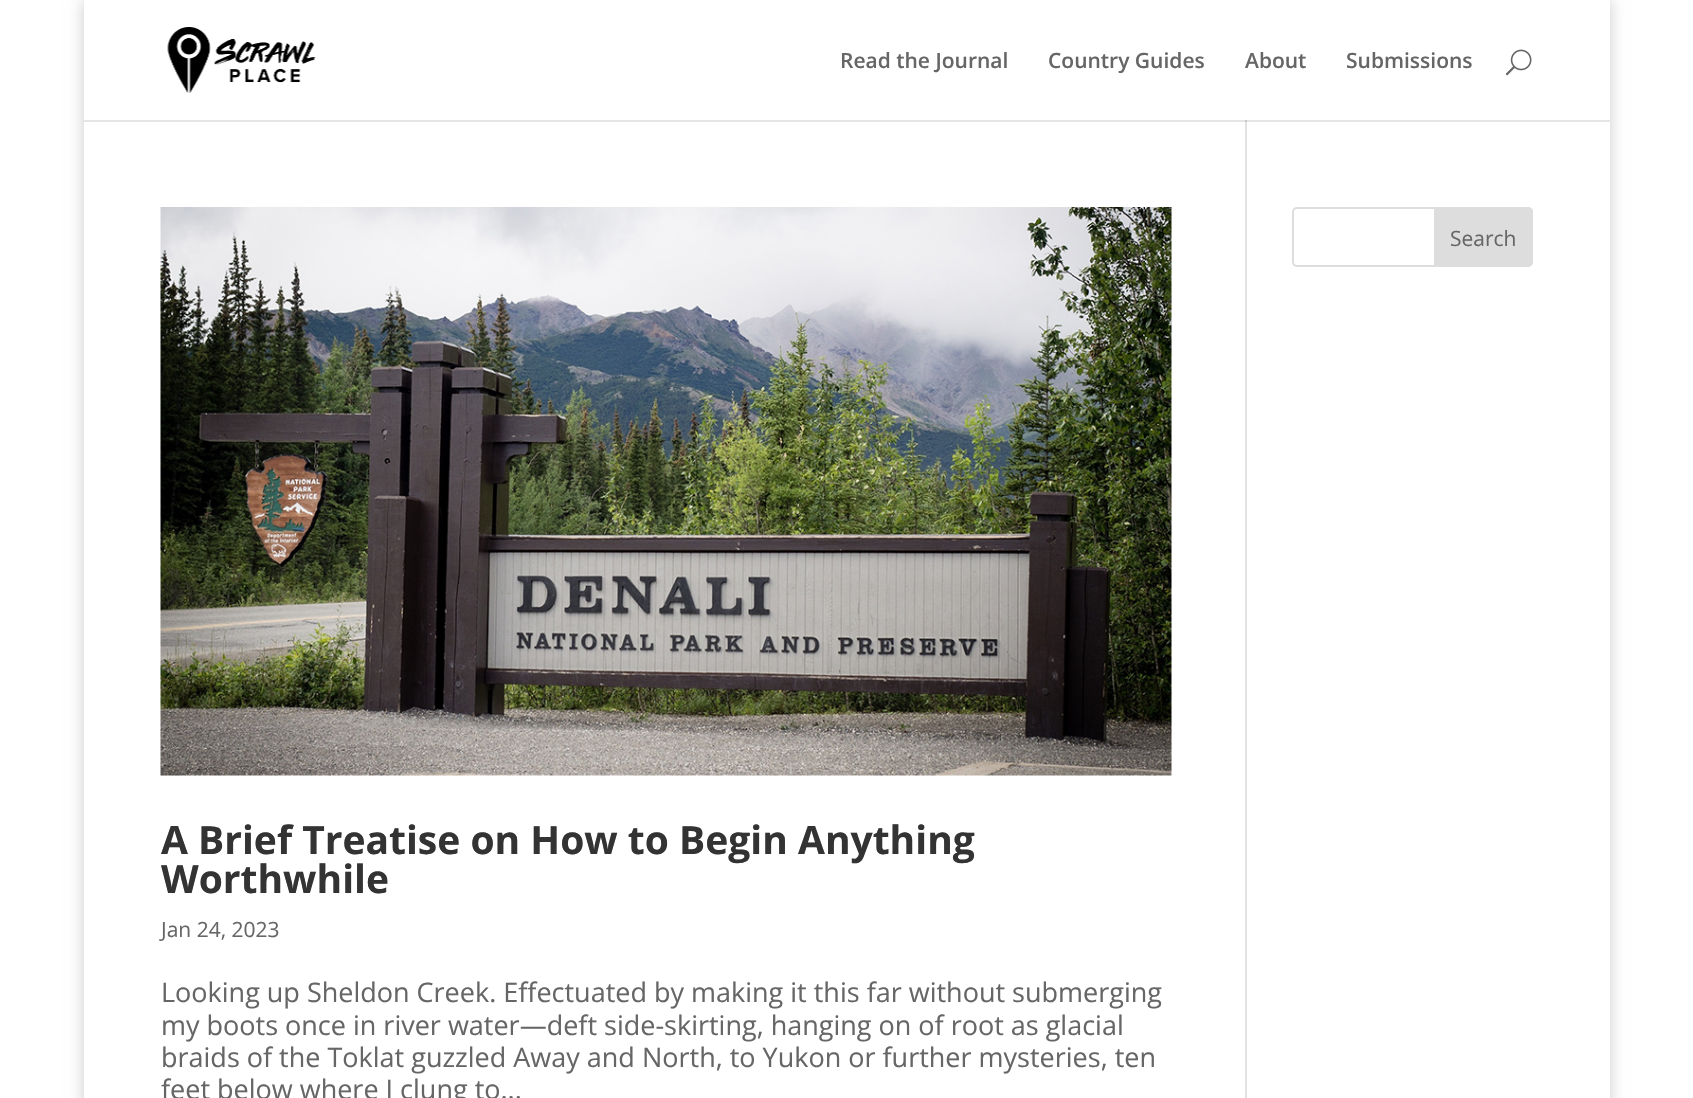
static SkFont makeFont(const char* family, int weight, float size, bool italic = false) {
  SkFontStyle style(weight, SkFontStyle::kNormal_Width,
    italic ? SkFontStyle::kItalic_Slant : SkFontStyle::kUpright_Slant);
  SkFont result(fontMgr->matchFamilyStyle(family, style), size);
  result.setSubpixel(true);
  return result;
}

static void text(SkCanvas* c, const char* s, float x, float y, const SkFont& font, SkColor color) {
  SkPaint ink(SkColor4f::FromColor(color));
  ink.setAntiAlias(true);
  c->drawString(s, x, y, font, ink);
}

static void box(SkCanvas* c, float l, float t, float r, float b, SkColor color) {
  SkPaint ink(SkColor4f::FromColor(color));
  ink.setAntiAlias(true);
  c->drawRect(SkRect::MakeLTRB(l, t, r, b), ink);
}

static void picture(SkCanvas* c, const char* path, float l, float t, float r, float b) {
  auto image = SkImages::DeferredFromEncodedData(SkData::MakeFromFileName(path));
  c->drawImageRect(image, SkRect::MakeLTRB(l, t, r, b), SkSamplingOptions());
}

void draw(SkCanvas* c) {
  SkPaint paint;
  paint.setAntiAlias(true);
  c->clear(0xffffffff);
  paint.setColor(0x33000000);
  paint.setMaskFilter(SkMaskFilter::MakeBlur(kNormal_SkBlurStyle, 7.5f));
  c->drawRect(SkRect::MakeLTRB(84, 0, 1610, 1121), paint);
  paint.setMaskFilter(nullptr);
  box(c, 84, 0, 1610, 1098, 0xffffffff);
  box(c, 1245, 120, 1247, 1098, 0xffe2e2e2);
  paint.setColor(0x1a000000);
  c->drawPath(SkPathBuilder().moveTo(84, 120).lineTo(84, 122).lineTo(1610, 122).lineTo(1610, 2).lineTo(1610, 120).close().detach(), paint);
  picture(c, "img_01.png", 167, 27, 316, 93);
  SkFont face1 = makeFont("Open Sans", 600, 21);
  text(c, "Read the Journal", 840, 68, face1, 0xff666666);
  text(c, "Country Guides", 1048, 68, face1, 0xff666666);
  text(c, "About", 1245, 68, face1, 0xff666666);
  text(c, "Submissions", 1346, 68, face1, 0xff666666);
  picture(c, "img_02.png", 1505, 49, 1532, 76);
  paint.setStyle(SkPaint::kStroke_Style);
  paint.setStrokeWidth(2);
  paint.setColor(0xffdddddd);
  c->drawRoundRect(SkRect::MakeLTRB(1293, 208, 1532, 266), 4, 4, paint);
  paint.setStyle(SkPaint::kFill_Style);
  c->drawPath(SkPathBuilder().moveTo(1435, 208).lineTo(1528, 208).cubicTo(1530, 208, 1532, 210, 1532, 212).lineTo(1532, 262).cubicTo(1532, 264, 1530, 266, 1528, 266).lineTo(1435, 266).close().detach(), paint);
  paint.setStyle(SkPaint::kStroke_Style);
  c->drawPath(SkPathBuilder().moveTo(1435, 208).lineTo(1528, 208).cubicTo(1530, 208, 1532, 210, 1532, 212).lineTo(1532, 262).cubicTo(1532, 264, 1530, 266, 1528, 266).lineTo(1435, 266).close().detach(), paint);
  SkFont face2 = makeFont("Open Sans", 400, 21);
  text(c, "Search", 1450, 246, face2, 0xff666666);
  picture(c, "img_03.png", 160, 207, 1172, 776);
  SkFont face3 = makeFont("Open Sans", 700, 39);
  text(c, "A Brief Treatise on How to Begin Anything", 161, 854, face3, 0xff333333);
  text(c, "Worthwhile", 161, 893, face3, 0xff333333);
  text(c, "Jan 24, 2023", 161, 937, face2, 0xff666666);
  SkFont face4 = makeFont("Open Sans", 400, 27);
  text(c, "Looking up Sheldon Creek. Effectuated by making it this far without submerging", 161, 1002, face4, 0xff666666);
  text(c, "my boots once in river water—deft side-skirting, hanging on of root as glacial", 161, 1035, face4, 0xff666666);
  text(c, "braids of the Toklat guzzled Away and North, to Yukon or further mysteries, ten", 161, 1067, face4, 0xff666666);
  text(c, "feet below where I clung to...", 161, 1099, face4, 0xff666666);
}
